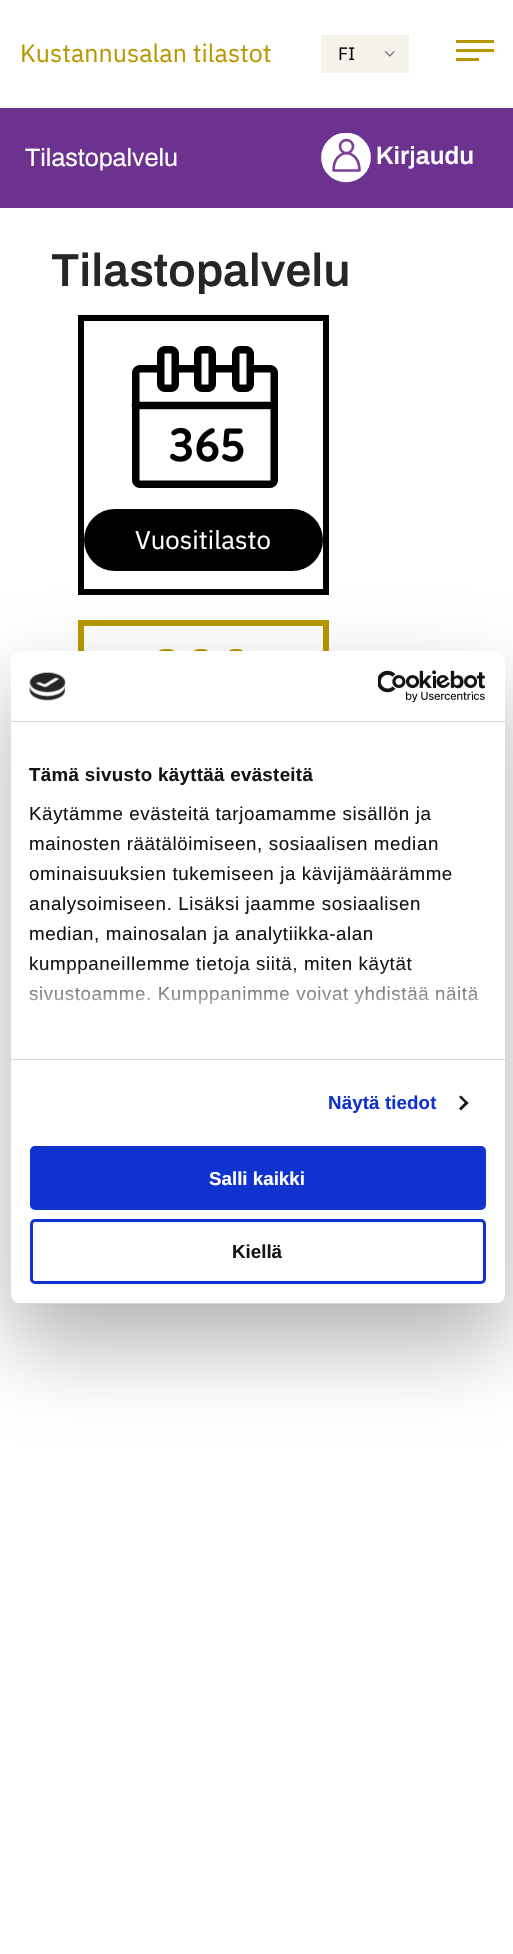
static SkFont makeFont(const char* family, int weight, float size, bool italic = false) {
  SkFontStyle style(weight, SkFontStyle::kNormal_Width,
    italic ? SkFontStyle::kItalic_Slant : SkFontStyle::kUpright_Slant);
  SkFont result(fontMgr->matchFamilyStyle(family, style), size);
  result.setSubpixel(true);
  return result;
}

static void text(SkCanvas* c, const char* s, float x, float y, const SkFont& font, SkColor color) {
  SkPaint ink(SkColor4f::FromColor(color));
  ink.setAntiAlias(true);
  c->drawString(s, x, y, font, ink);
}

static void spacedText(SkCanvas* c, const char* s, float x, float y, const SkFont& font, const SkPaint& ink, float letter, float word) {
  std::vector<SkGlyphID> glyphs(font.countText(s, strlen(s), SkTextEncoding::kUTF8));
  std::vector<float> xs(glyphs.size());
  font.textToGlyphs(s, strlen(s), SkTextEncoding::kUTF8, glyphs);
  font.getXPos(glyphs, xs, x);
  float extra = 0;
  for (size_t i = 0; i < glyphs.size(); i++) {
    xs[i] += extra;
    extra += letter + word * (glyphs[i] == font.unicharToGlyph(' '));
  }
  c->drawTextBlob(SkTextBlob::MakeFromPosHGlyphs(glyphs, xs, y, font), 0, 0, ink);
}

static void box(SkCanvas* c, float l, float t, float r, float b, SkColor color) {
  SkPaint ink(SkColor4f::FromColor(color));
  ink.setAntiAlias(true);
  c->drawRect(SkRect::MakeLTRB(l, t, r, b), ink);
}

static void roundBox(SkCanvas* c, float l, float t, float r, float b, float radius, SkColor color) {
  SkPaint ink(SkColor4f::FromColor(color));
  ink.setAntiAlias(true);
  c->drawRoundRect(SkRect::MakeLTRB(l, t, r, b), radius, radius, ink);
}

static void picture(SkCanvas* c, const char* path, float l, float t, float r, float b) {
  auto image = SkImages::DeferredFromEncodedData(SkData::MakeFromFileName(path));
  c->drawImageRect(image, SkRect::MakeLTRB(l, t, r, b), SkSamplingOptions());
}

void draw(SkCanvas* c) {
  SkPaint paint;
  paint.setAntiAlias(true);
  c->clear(0xffffffff);
  SkFont face1 = makeFont("IBM Plex Sans", 400, 25);
  text(c, "Kustannusalan tilastot", 20, 62, face1, 0xffb79800);
  box(c, 321, 35, 409, 73, 0xfff5f2ec);
  picture(c, "img_01.png", 384, 50, 395, 57);
  SkFont face2 = makeFont("IBM Plex Sans", 400, 18);
  text(c, "FI", 338, 60, face2, 0xff000000);
  box(c, 456, 58, 479, 61, 0xffb79800);
  box(c, 456, 40, 494, 43, 0xffb79800);
  box(c, 456, 49, 494, 52, 0xffb79800);
  {
    const SkColor colors[] = {0xff6b328c, 0xff6d328f};
    const float stops[] = {0, 1};
    const SkPoint ends[] = {{257, 107}, {257, 120}};
    paint.setShader(SkGradientShader::MakeLinear(ends, colors, stops, 2, SkTileMode::kClamp));
    paint.setAlpha(255);
  }
  c->drawRect(SkRect::MakeLTRB(0, 108, 513, 120), paint);
  box(c, 0, 120, 513, 208, 0xff6d328f);
  SkFont face3 = makeFont("Archivo", 400, 25);
  text(c, "Tilastopalvelu", 25, 166, face3, 0xffffffff);
  paint.setShader(nullptr);
  paint.setColor(0xffffffff);
  c->drawCircle(346, 157.5f, 24, paint);
  c->save();
  c->clipRect(SkRect::MakeLTRB(321, 133, 371, 183));
  paint.setStyle(SkPaint::kStroke_Style);
  paint.setStrokeWidth(1.7f);
  c->drawCircle(346, 157.5f, 24, paint);
  c->restore();
  paint.setStrokeWidth(2.6f);
  paint.setColor(0xff7f3f98);
  c->drawCircle(346.5f, 146.5f, 6.5f, paint);
  SkFont face4 = makeFont("Archivo", 600, 25);
  text(c, "Kirjaudu", 376, 164, face4, 0xffffffff);
  paint.setStrokeCap(SkPaint::kRound_Cap);
  paint.setStrokeJoin(SkPaint::kRound_Join);
  c->drawPath(SkPathBuilder().moveTo(359.5f, 170.5f).lineTo(333.5f, 170.5f).cubicTo(333.5f, 147.5f, 359.5f, 147.5f, 359.5f, 170.5f).close().detach(), paint);
  SkFont face5 = makeFont("Archivo", 600, 46.25f);
  text(c, "Tilastopalvelu", 51, 286, face5, 0xff262626);
  paint.setStrokeWidth(6);
  paint.setStrokeCap(SkPaint::kButt_Cap);
  paint.setStrokeJoin(SkPaint::kMiter_Join);
  paint.setColor(0xff000000);
  c->drawRect(SkRect::MakeLTRB(81, 318, 326, 592), paint);
  picture(c, "img_02.png", 131, 346, 278, 488);
  roundBox(c, 84, 509, 323, 571, 31, 0xff000000);
  SkFont face6 = makeFont("IBM Plex Sans", 400, 25.75f);
  text(c, "Vuositilasto", 135, 549, face6, 0xffffffff);
  paint.setColor(0xffb79800);
  c->drawRect(SkRect::MakeLTRB(81, 623, 326, 898), paint);
  paint.setStrokeWidth(7);
  c->drawRoundRect(SkRect::MakeLTRB(159.5f, 652.5f, 173.5f, 688.5f), 4.5f, 4.5f, paint);
  c->drawRoundRect(SkRect::MakeLTRB(194.5f, 652.5f, 207.5f, 688.5f), 4.5f, 4.5f, paint);
  c->drawRoundRect(SkRect::MakeLTRB(229.5f, 652.5f, 242.5f, 688.5f), 4.5f, 4.5f, paint);
  paint.setStyle(SkPaint::kFill_Style);
  paint.setColor(0x4d000000);
  paint.setMaskFilter(SkMaskFilter::MakeBlur(kNormal_SkBlurStyle, 42.5f));
  c->drawRoundRect(SkRect::MakeLTRB(11, 691, 505, 1344), 10, 10, paint);
  paint.setMaskFilter(nullptr);
  roundBox(c, 11, 651, 505, 1304, 10, 0xffffffff);
  box(c, 11, 721, 505, 722, 0xffd6d6d6);
  picture(c, "img_03.png", 29, 672, 66, 701);
  picture(c, "img_04.png", 378, 670, 486, 703);
  box(c, 11, 1059, 505, 1060, 0xffd6d6d6);
  SkFont face7 = makeFont("Liberation Sans", 700, 18.75f);
  paint.setColor(0xff141414);
  spacedText(c, "Tämä sivusto käyttää evästeitä", 29, 781, face7, paint, 0.3f, 0);
  SkFont face8 = makeFont("Liberation Sans", 400, 18.75f);
  spacedText(c, "Käytämme evästeitä tarjoamamme sisällön ja", 29, 820, face8, paint, 0.6f, 0);
  spacedText(c, "mainosten räätälöimiseen, sosiaalisen median", 29, 850, face8, paint, 0.6f, 0);
  spacedText(c, "ominaisuuksien tukemiseen ja kävijämäärämme", 29, 880, face8, paint, 0.6f, 0);
  spacedText(c, "analysoimiseen. Lisäksi jaamme sosiaalisen", 29, 910, face8, paint, 0.6f, 0);
  spacedText(c, "median, mainosalan ja analytiikka-alan", 29, 940, face8, paint, 0.6f, 0);
  spacedText(c, "kumppaneillemme tietoja siitä, miten käytät", 29, 970, face8, paint, 0.6f, 0);
  spacedText(c, "sivustoamme. Kumppanimme voivat yhdistää näitä", 29, 1000, face8, paint, 0.6f, 0);
  {
    const SkColor colors[] = {0xffffffff, 0xccffffff, 0x00ffffff};
    const float stops[] = {0, 0.5f, 1};
    const SkPoint ends[] = {{249, 1059}, {249, 965}};
    paint.setShader(SkGradientShader::MakeLinear(ends, colors, stops, 3, SkTileMode::kClamp));
    paint.setAlpha(255);
  }
  c->drawRect(SkRect::MakeLTRB(29, 966, 479, 1004), paint);
  paint.setShader(nullptr);
  paint.setColor(0xff1032cf);
  spacedText(c, "Näytä tiedot", 328, 1109, face7, paint, 0.1f, 0);
  paint.setColor(0xff141414);
  c->drawPath(SkPathBuilder().moveTo(461, 1095.5f).lineTo(468.5f, 1103).lineTo(466.5f, 1104.5f).lineTo(459, 1097).close().detach(), paint);
  c->drawPath(SkPathBuilder().moveTo(466.5f, 1101).lineTo(468.5f, 1103).lineTo(461, 1110.5f).lineTo(459, 1108.5f).close().detach(), paint);
  c->save();
  c->clipPath(SkPathBuilder().moveTo(21, 651).lineTo(495, 651).cubicTo(500.5f, 651, 505, 655.5f, 505, 661).lineTo(505, 1294).cubicTo(505, 1299.5f, 500.5f, 1304, 495, 1304).lineTo(21, 1304).cubicTo(15.5f, 1304, 11, 1299.5f, 11, 1294).lineTo(11, 661).cubicTo(11, 655.5f, 15.5f, 651, 21, 651).close().detach(), true);
  box(c, 11, 1303, 505, 1304, 0xffd6d6d6);
  c->restore();
  paint.setColor(0xff1032cf);
  c->drawRoundRect(SkRect::MakeLTRB(31.5f, 1147.5f, 484.5f, 1208.5f), 3.5f, 3.5f, paint);
  paint.setStyle(SkPaint::kStroke_Style);
  paint.setStrokeWidth(3);
  c->drawRoundRect(SkRect::MakeLTRB(31.5f, 1147.5f, 484.5f, 1208.5f), 3.5f, 3.5f, paint);
  text(c, "Salli kaikki", 209, 1185, face7, 0xffffffff);
  c->drawRoundRect(SkRect::MakeLTRB(31.5f, 1220.5f, 484.5f, 1282.5f), 3.5f, 3.5f, paint);
  text(c, "Kiellä", 232, 1258, face7, 0xff141414);
}
